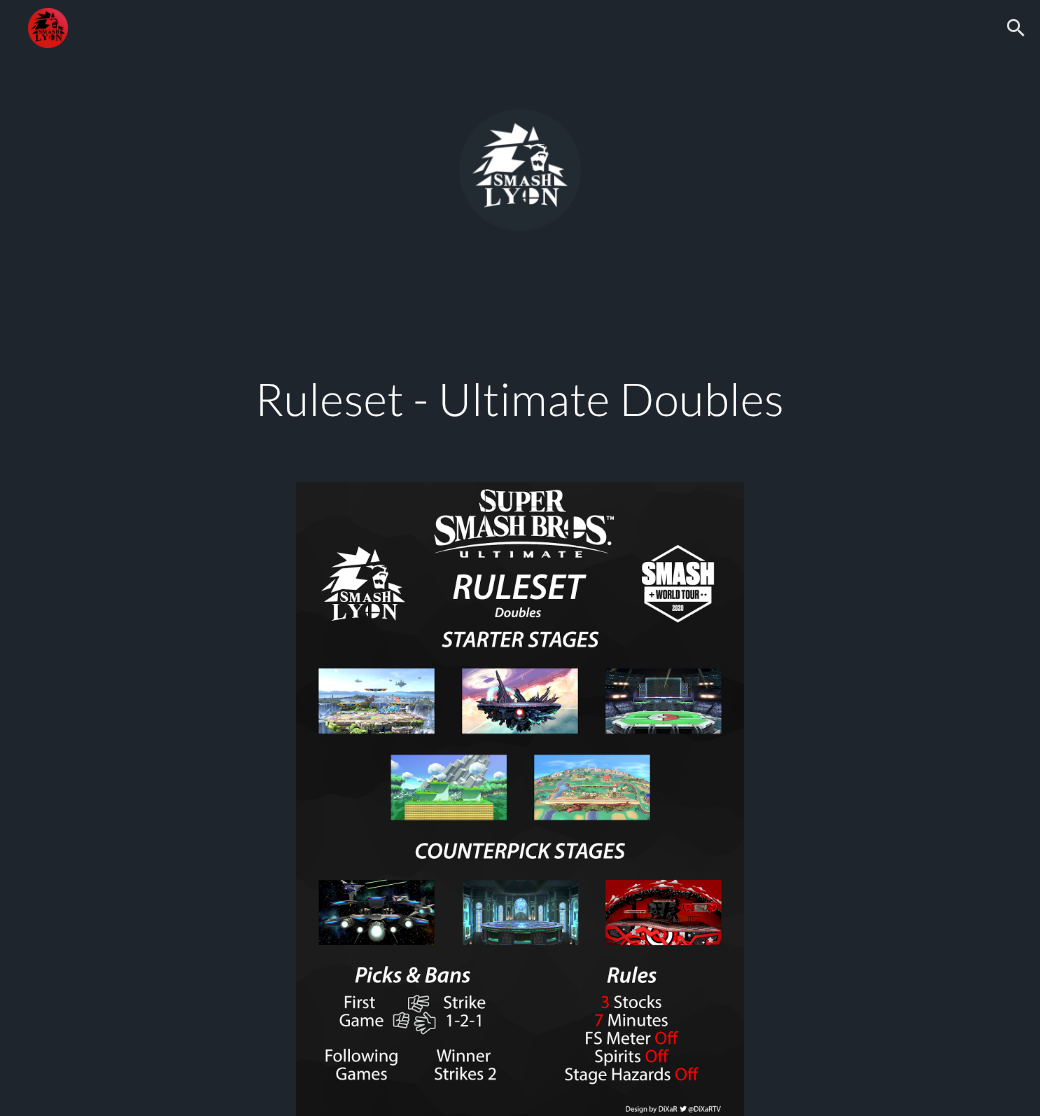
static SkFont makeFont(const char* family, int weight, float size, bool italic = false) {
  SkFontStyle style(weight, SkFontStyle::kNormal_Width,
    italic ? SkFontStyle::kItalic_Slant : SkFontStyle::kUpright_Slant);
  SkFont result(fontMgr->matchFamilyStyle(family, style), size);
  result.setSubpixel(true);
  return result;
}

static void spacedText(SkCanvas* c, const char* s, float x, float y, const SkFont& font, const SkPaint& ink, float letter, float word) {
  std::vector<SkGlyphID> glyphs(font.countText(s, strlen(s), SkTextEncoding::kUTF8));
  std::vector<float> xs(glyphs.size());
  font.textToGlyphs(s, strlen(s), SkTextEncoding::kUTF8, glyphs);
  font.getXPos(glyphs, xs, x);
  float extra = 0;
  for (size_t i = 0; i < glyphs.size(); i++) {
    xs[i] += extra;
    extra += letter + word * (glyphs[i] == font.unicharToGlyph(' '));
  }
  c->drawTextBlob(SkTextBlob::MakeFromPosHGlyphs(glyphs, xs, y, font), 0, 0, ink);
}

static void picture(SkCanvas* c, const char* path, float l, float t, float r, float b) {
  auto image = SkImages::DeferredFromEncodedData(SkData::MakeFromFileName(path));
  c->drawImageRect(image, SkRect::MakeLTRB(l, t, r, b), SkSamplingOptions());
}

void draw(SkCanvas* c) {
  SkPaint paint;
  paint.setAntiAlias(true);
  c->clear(0xff1f252d);
  picture(c, "img_01.png", 28, 8, 68, 48);
  picture(c, "img_02.png", 1007, 19, 1025, 37);
  picture(c, "img_03.png", 459, 109, 581, 231);
  SkFont face1 = makeFont("Lato", 300, 45.25f);
  paint.setColor(0xffffffff);
  spacedText(c, "Ruleset - Ultimate Doubles", 255, 416, face1, paint, 0.5f, 0);
  picture(c, "img_04.png", 296, 482, 744, 1116);
}
